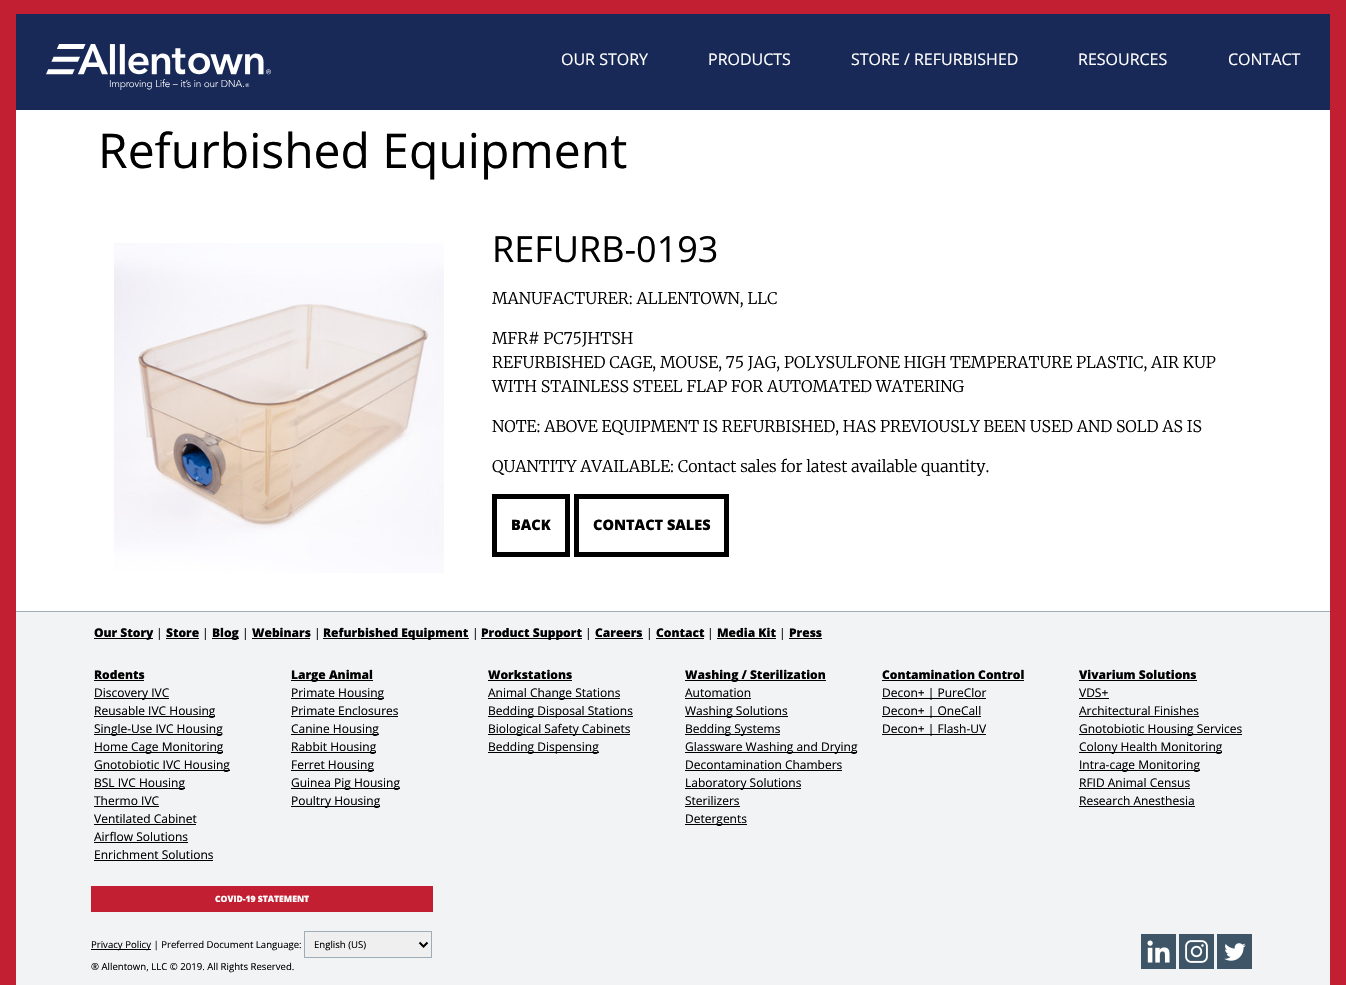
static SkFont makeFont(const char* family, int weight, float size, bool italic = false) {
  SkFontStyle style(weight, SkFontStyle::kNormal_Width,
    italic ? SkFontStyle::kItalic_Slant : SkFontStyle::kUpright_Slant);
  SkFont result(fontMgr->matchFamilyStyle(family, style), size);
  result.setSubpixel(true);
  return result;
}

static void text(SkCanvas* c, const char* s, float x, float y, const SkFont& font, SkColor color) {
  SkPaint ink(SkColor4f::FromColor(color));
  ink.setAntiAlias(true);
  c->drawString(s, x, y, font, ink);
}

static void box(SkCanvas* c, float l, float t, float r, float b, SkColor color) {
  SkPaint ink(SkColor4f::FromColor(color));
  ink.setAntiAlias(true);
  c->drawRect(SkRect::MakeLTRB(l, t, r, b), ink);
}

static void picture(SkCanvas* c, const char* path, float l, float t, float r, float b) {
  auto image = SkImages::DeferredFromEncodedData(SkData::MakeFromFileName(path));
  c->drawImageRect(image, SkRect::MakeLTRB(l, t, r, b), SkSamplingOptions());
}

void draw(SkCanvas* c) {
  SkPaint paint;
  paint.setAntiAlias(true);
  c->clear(0xffffffff);
  paint.setStyle(SkPaint::kStroke_Style);
  paint.setStrokeWidth(16);
  paint.setColor(0xffc22032);
  c->drawRect(SkRect::MakeLTRB(8, 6, 1338, 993), paint);
  box(c, 16, 14, 1330, 110, 0xff182957);
  picture(c, "img_01.png", 46, 44, 271, 90);
  SkFont face1 = makeFont("Open Sans", 400, 16);
  text(c, "OUR STORY", 561, 65, face1, 0xffffffff);
  text(c, "PRODUCTS", 708, 65, face1, 0xffffffff);
  text(c, "STORE / REFURBISHED", 851, 65, face1, 0xffffffff);
  text(c, "RESOURCES", 1078, 65, face1, 0xffffffff);
  text(c, "CONTACT", 1228, 65, face1, 0xffffffff);
  SkFont face2 = makeFont("Open Sans", 400, 48);
  text(c, "Refurbished Equipment", 98, 168, face2, 0xff000000);
  picture(c, "img_02.png", 114, 243, 444, 573);
  SkFont face3 = makeFont("Open Sans", 400, 36);
  text(c, "REFURB-0193", 492, 262, face3, 0xff000000);
  SkFont face4 = makeFont("Merriweather", 300, 16);
  text(c, "MANUFACTURER: ALLENTOWN, LLC", 492, 304, face4, 0xff000000);
  text(c, "MFR# PC75JHTSH", 492, 344, face4, 0xff000000);
  text(c, "REFURBISHED CAGE, MOUSE, 75 JAG, POLYSULFONE HIGH TEMPERATURE PLASTIC, AIR KUP", 492, 368, face4, 0xff000000);
  text(c, "WITH STAINLESS STEEL FLAP FOR AUTOMATED WATERING", 492, 392, face4, 0xff000000);
  text(c, "NOTE: ABOVE EQUIPMENT IS REFURBISHED, HAS PREVIOUSLY BEEN USED AND SOLD AS IS", 492, 432, face4, 0xff000000);
  text(c, "QUANTITY AVAILABLE: Contact sales for latest available quantity.", 492, 472, face4, 0xff000000);
  paint.setStrokeWidth(5);
  paint.setColor(0xff000000);
  c->drawRect(SkRect::MakeLTRB(494.5f, 496.5f, 567.5f, 554.5f), paint);
  SkFont face5 = makeFont("Open Sans", 800, 14.5f);
  text(c, "BACK", 511, 530, face5, 0xff000000);
  c->drawRect(SkRect::MakeLTRB(576.5f, 496.5f, 726.5f, 554.5f), paint);
  text(c, "CONTACT SALES", 593, 530, face5, 0xff000000);
  box(c, 16, 612, 1330, 985, 0xfff1f3f4);
  box(c, 16, 611, 1330, 612, 0xff9cadb7);
  box(c, 94, 638, 153, 639, 0xff000000);
  SkFont face6 = makeFont("Open Sans", 800, 12);
  text(c, "Our Story", 94, 637, face6, 0xff000000);
  SkFont face7 = makeFont("Open Sans", 400, 12);
  text(c, "|", 156, 637, face7, 0xff000000);
  text(c, "Store", 166, 637, face6, 0xff000000);
  box(c, 166, 638, 199, 639, 0xff000000);
  text(c, "|", 202, 637, face7, 0xff000000);
  box(c, 212, 638, 239, 639, 0xff000000);
  text(c, "Blog", 212, 637, face6, 0xff000000);
  text(c, "|", 242, 637, face7, 0xff000000);
  text(c, "Webinars", 252, 637, face6, 0xff000000);
  box(c, 252, 638, 310, 639, 0xff000000);
  text(c, "|", 314, 637, face7, 0xff000000);
  box(c, 323, 638, 469, 639, 0xff000000);
  text(c, "Refurbished Equipment", 323, 637, face6, 0xff000000);
  text(c, "|", 472, 637, face7, 0xff000000);
  box(c, 481, 638, 582, 639, 0xff000000);
  text(c, "Product Support", 481, 637, face6, 0xff000000);
  text(c, "|", 585, 637, face7, 0xff000000);
  text(c, "Careers", 595, 637, face6, 0xff000000);
  box(c, 595, 638, 643, 639, 0xff000000);
  text(c, "|", 646, 637, face7, 0xff000000);
  text(c, "Contact", 656, 637, face6, 0xff000000);
  box(c, 656, 638, 704, 639, 0xff000000);
  text(c, "|", 707, 637, face7, 0xff000000);
  text(c, "Media Kit", 717, 637, face6, 0xff000000);
  box(c, 717, 638, 776, 639, 0xff000000);
  text(c, "|", 779, 637, face7, 0xff000000);
  text(c, "Press", 789, 637, face6, 0xff000000);
  box(c, 789, 638, 822, 639, 0xff000000);
  text(c, "Rodents", 94, 679, face6, 0xff000000);
  box(c, 94, 680, 144, 681, 0xff000000);
  box(c, 94, 698, 169, 699, 0xff000000);
  text(c, "Discovery IVC", 94, 697, face7, 0xff000000);
  box(c, 94, 716, 215, 717, 0xff000000);
  text(c, "Reusable IVC Housing", 94, 715, face7, 0xff000000);
  box(c, 94, 734, 222, 735, 0xff000000);
  text(c, "Single-Use IVC Housing", 94, 733, face7, 0xff000000);
  box(c, 94, 752, 223, 753, 0xff000000);
  text(c, "Home Cage Monitoring", 94, 751, face7, 0xff000000);
  box(c, 94, 770, 230, 771, 0xff000000);
  text(c, "Gnotobiotic IVC Housing", 94, 769, face7, 0xff000000);
  box(c, 94, 788, 185, 789, 0xff000000);
  text(c, "BSL IVC Housing", 94, 787, face7, 0xff000000);
  text(c, "Thermo IVC", 94, 805, face7, 0xff000000);
  box(c, 94, 806, 159, 807, 0xff000000);
  text(c, "Ventilated Cabinet", 94, 823, face7, 0xff000000);
  box(c, 94, 824, 196, 825, 0xff000000);
  text(c, "Airflow Solutions", 94, 841, face7, 0xff000000);
  box(c, 94, 842, 188, 843, 0xff000000);
  text(c, "Enrichment Solutions", 94, 859, face7, 0xff000000);
  box(c, 94, 860, 213, 861, 0xff000000);
  box(c, 291, 680, 373, 681, 0xff000000);
  text(c, "Large Animal", 291, 679, face6, 0xff000000);
  box(c, 291, 698, 384, 699, 0xff000000);
  text(c, "Primate Housing", 291, 697, face7, 0xff000000);
  text(c, "Primate Enclosures", 291, 715, face7, 0xff000000);
  box(c, 291, 716, 398, 717, 0xff000000);
  box(c, 291, 734, 379, 735, 0xff000000);
  text(c, "Canine Housing", 291, 733, face7, 0xff000000);
  box(c, 291, 752, 376, 753, 0xff000000);
  text(c, "Rabbit Housing", 291, 751, face7, 0xff000000);
  box(c, 291, 770, 374, 771, 0xff000000);
  text(c, "Ferret Housing", 291, 769, face7, 0xff000000);
  box(c, 291, 788, 400, 789, 0xff000000);
  text(c, "Guinea Pig Housing", 291, 787, face7, 0xff000000);
  box(c, 291, 806, 380, 807, 0xff000000);
  text(c, "Poultry Housing", 291, 805, face7, 0xff000000);
  text(c, "Workstations", 488, 679, face6, 0xff000000);
  box(c, 488, 680, 572, 681, 0xff000000);
  box(c, 488, 698, 620, 699, 0xff000000);
  text(c, "Animal Change Stations", 488, 697, face7, 0xff000000);
  box(c, 488, 716, 633, 717, 0xff000000);
  text(c, "Bedding Disposal Stations", 488, 715, face7, 0xff000000);
  box(c, 488, 734, 630, 735, 0xff000000);
  text(c, "Biological Safety Cabinets", 488, 733, face7, 0xff000000);
  box(c, 488, 752, 599, 753, 0xff000000);
  text(c, "Bedding Dispensing", 488, 751, face7, 0xff000000);
  box(c, 685, 680, 826, 681, 0xff000000);
  text(c, "Washing / Sterilization", 685, 679, face6, 0xff000000);
  text(c, "Automation", 685, 697, face7, 0xff000000);
  box(c, 685, 698, 751, 699, 0xff000000);
  box(c, 685, 716, 788, 717, 0xff000000);
  text(c, "Washing Solutions", 685, 715, face7, 0xff000000);
  box(c, 685, 734, 780, 735, 0xff000000);
  text(c, "Bedding Systems", 685, 733, face7, 0xff000000);
  box(c, 685, 752, 857, 753, 0xff000000);
  text(c, "Glassware Washing and Drying", 685, 751, face7, 0xff000000);
  text(c, "Decontamination Chambers", 685, 769, face7, 0xff000000);
  box(c, 685, 770, 842, 771, 0xff000000);
  box(c, 685, 788, 801, 789, 0xff000000);
  text(c, "Laboratory Solutions", 685, 787, face7, 0xff000000);
  text(c, "Sterilizers", 685, 805, face7, 0xff000000);
  box(c, 685, 806, 740, 807, 0xff000000);
  box(c, 685, 824, 747, 825, 0xff000000);
  text(c, "Detergents", 685, 823, face7, 0xff000000);
  text(c, "Contamination Control", 882, 679, face6, 0xff000000);
  box(c, 882, 680, 1024, 681, 0xff000000);
  box(c, 882, 698, 986, 699, 0xff000000);
  text(c, "Decon+ | PureClor", 882, 697, face7, 0xff000000);
  box(c, 882, 716, 981, 717, 0xff000000);
  text(c, "Decon+ | OneCall", 882, 715, face7, 0xff000000);
  box(c, 882, 734, 986, 735, 0xff000000);
  text(c, "Decon+ | Flash-UV", 882, 733, face7, 0xff000000);
  text(c, "Vivarium Solutions", 1079, 679, face6, 0xff000000);
  box(c, 1079, 680, 1197, 681, 0xff000000);
  text(c, "VDS+", 1079, 697, face7, 0xff000000);
  box(c, 1079, 698, 1109, 699, 0xff000000);
  text(c, "Architectural Finishes", 1079, 715, face7, 0xff000000);
  box(c, 1079, 716, 1199, 717, 0xff000000);
  box(c, 1079, 734, 1242, 735, 0xff000000);
  text(c, "Gnotobiotic Housing Services", 1079, 733, face7, 0xff000000);
  box(c, 1079, 752, 1222, 753, 0xff000000);
  text(c, "Colony Health Monitoring", 1079, 751, face7, 0xff000000);
  box(c, 1079, 770, 1200, 771, 0xff000000);
  text(c, "Intra-cage Monitoring", 1079, 769, face7, 0xff000000);
  text(c, "RFID Animal Census", 1079, 787, face7, 0xff000000);
  box(c, 1079, 788, 1190, 789, 0xff000000);
  text(c, "Research Anesthesia", 1079, 805, face7, 0xff000000);
  box(c, 1079, 806, 1195, 807, 0xff000000);
  box(c, 91, 886, 433, 912, 0xffc22032);
  SkFont face8 = makeFont("Open Sans", 800, 8.6f);
  text(c, "COVID-19 STATEMENT", 215, 902, face8, 0xffffffff);
  box(c, 91, 949, 151, 950, 0xff000000);
  SkFont face9 = makeFont("Open Sans", 400, 9.6f);
  text(c, "Privacy Policy | Preferred Document Language:", 91, 948, face9, 0xff000000);
  paint.setStyle(SkPaint::kFill_Style);
  paint.setColor(0xffefefef);
  c->drawRect(SkRect::MakeLTRB(304.5f, 931.5f, 431.5f, 957.5f), paint);
  paint.setStyle(SkPaint::kStroke_Style);
  paint.setStrokeWidth(1);
  paint.setColor(0xff9cadb7);
  c->drawRect(SkRect::MakeLTRB(304.5f, 931.5f, 431.5f, 957.5f), paint);
  paint.setStrokeWidth(2);
  paint.setColor(0xff000000);
  c->drawPath(SkPathBuilder().moveTo(419.5f, 942.5f).lineTo(423.5f, 946.5f).lineTo(427.5f, 942.5f).detach(), paint);
  text(c, "English (US)", 314, 948, face9, 0xff000000);
  text(c, "® Allentown, LLC © 2019. All Rights Reserved.", 91, 970, face9, 0xff000000);
  box(c, 1141, 934, 1176, 969, 0xff3d5567);
  picture(c, "img_03.png", 1147, 940, 1170, 963);
  box(c, 1179, 934, 1214, 969, 0xff3d5567);
  picture(c, "img_04.png", 1185, 940, 1208, 963);
  box(c, 1217, 934, 1252, 969, 0xff3d5567);
  picture(c, "img_05.png", 1224, 943, 1246, 961);
}
